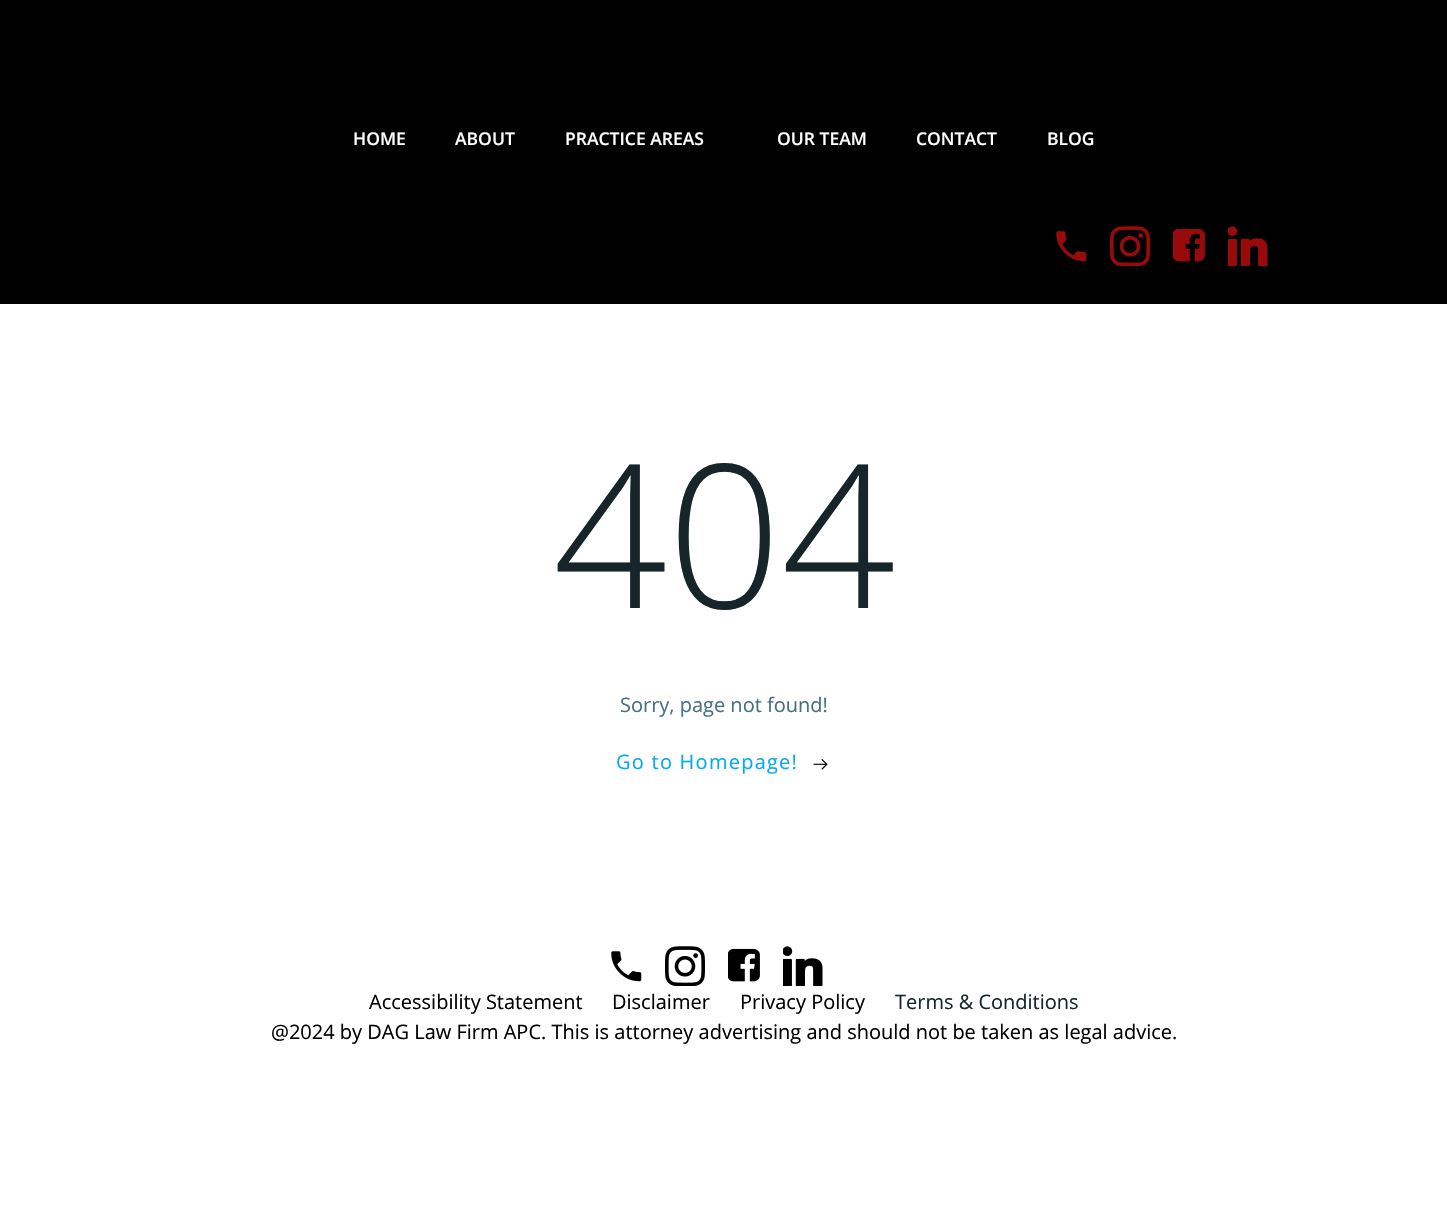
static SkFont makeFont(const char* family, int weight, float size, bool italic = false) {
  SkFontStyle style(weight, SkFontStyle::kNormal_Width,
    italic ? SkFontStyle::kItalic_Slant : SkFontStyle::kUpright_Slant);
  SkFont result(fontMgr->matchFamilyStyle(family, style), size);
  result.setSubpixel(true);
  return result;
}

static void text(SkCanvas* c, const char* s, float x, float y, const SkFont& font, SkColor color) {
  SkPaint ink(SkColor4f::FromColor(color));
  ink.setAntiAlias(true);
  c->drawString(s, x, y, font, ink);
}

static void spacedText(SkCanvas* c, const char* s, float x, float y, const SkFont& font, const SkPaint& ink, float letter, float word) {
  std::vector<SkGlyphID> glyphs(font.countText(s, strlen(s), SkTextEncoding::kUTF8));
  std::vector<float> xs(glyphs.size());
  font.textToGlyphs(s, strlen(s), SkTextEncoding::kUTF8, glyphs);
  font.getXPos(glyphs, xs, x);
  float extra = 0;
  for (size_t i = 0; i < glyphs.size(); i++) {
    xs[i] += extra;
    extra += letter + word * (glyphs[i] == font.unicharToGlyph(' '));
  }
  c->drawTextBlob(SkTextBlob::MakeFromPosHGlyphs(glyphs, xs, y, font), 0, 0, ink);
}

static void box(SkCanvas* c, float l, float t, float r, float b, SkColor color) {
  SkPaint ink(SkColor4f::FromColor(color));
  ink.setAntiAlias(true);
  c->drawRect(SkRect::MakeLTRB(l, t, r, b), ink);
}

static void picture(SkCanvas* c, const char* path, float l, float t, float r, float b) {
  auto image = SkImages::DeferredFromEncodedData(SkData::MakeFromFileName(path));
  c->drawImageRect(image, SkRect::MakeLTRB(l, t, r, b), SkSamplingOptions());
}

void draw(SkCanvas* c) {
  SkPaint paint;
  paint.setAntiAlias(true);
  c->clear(0xffffffff);
  box(c, 0, 0, 1447, 304, 0xff000000);
  picture(c, "img_01.png", 1056, 231, 1087, 262);
  picture(c, "img_02.png", 1110, 226, 1150, 266);
  picture(c, "img_03.png", 1173, 228, 1205, 262);
  picture(c, "img_04.png", 1228, 226, 1268, 266);
  SkFont face1 = makeFont("Open Sans", 600, 17.5f);
  text(c, "HOME", 353, 145, face1, 0xffffffff);
  text(c, "ABOUT", 455, 145, face1, 0xffffffff);
  text(c, "PRACTICE AREAS", 565, 145, face1, 0xffffffff);
  text(c, "OUR TEAM", 777, 145, face1, 0xffffffff);
  text(c, "CONTACT", 916, 145, face1, 0xffffffff);
  text(c, "BLOG", 1047, 145, face1, 0xffffffff);
  SkFont face2 = makeFont("Open Sans", 300, 200);
  text(c, "404", 553, 608, face2, 0xff17252a);
  SkFont face3 = makeFont("Open Sans", 400, 20);
  text(c, "Sorry, page not found!", 620, 712, face3, 0xff46707f);
  paint.setColor(0xff03a9f4);
  spacedText(c, "Go to Homepage!", 616, 769, face3, paint, 1.25f, 0);
  picture(c, "img_05.png", 813, 759, 828, 770);
  picture(c, "img_06.png", 611, 951, 642, 982);
  picture(c, "img_07.png", 665, 946, 705, 986);
  picture(c, "img_08.png", 728, 948, 760, 982);
  picture(c, "img_09.png", 783, 946, 823, 986);
  text(c, "Accessibility Statement", 369, 1009, face3, 0xff000000);
  text(c, "Disclaimer", 612, 1009, face3, 0xff000000);
  text(c, "Privacy Policy", 740, 1009, face3, 0xff000000);
  text(c, "Terms & Conditions", 895, 1009, face3, 0xff17252a);
  text(c, "@2024 by DAG Law Firm APC. This is attorney advertising and should not be taken as legal advice.", 271, 1039, face3, 0xff000000);
}
